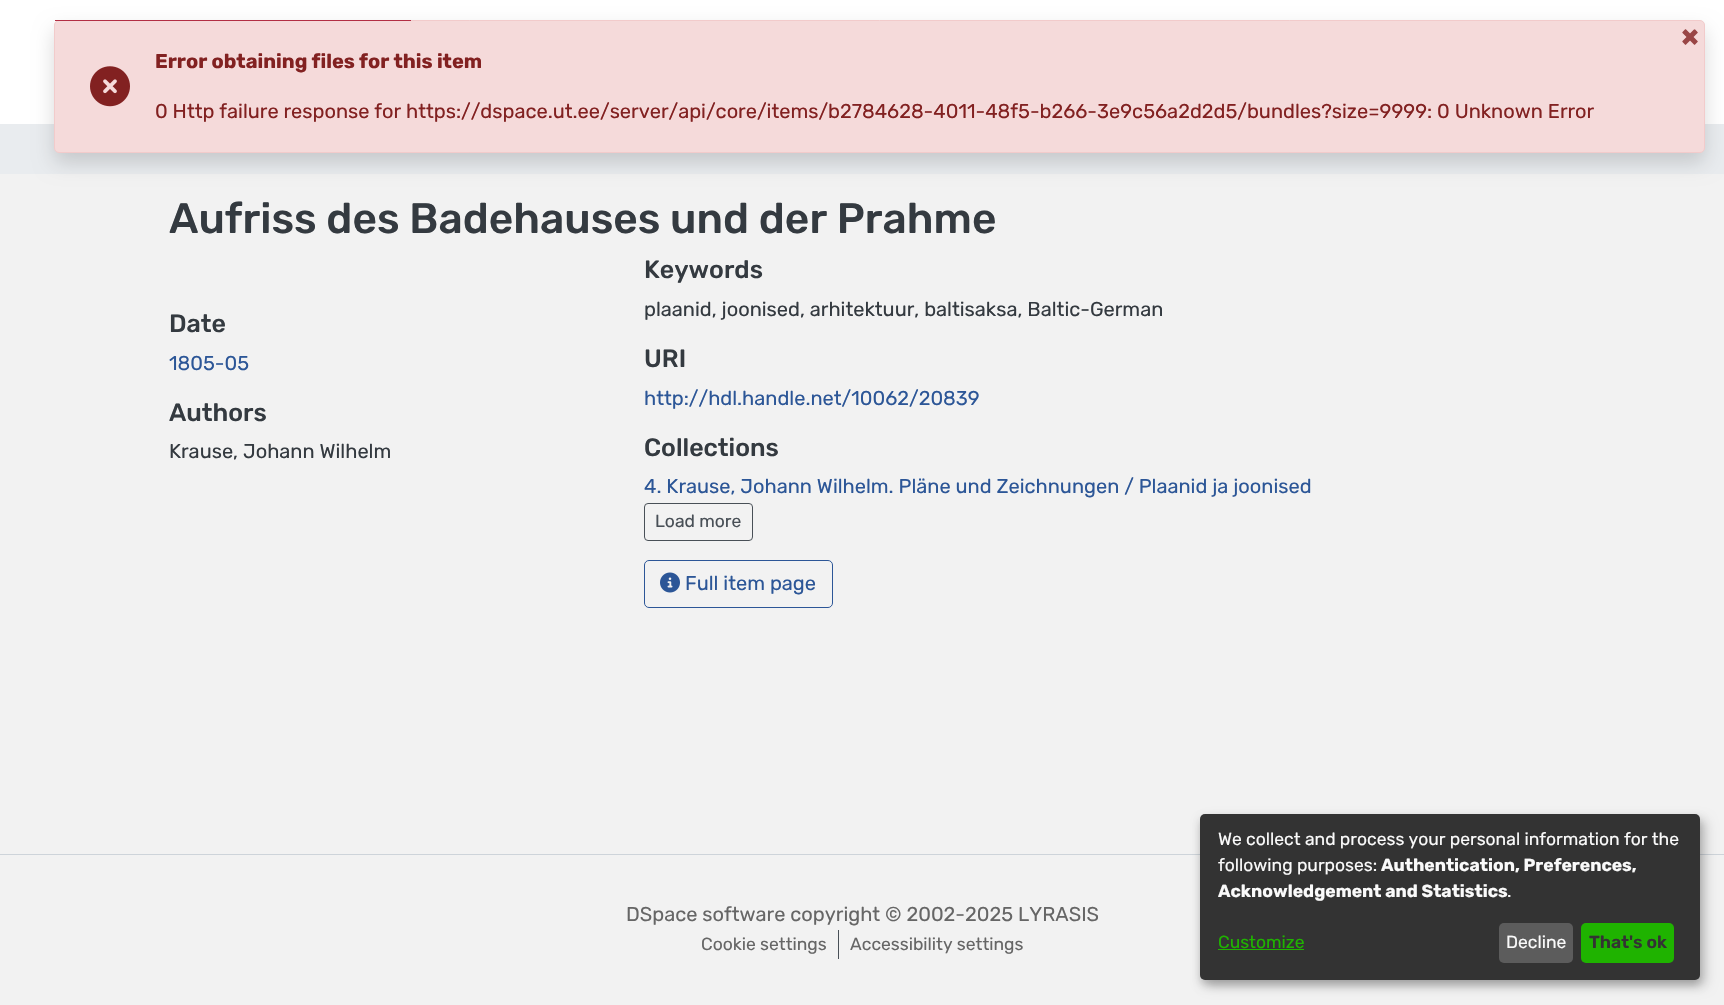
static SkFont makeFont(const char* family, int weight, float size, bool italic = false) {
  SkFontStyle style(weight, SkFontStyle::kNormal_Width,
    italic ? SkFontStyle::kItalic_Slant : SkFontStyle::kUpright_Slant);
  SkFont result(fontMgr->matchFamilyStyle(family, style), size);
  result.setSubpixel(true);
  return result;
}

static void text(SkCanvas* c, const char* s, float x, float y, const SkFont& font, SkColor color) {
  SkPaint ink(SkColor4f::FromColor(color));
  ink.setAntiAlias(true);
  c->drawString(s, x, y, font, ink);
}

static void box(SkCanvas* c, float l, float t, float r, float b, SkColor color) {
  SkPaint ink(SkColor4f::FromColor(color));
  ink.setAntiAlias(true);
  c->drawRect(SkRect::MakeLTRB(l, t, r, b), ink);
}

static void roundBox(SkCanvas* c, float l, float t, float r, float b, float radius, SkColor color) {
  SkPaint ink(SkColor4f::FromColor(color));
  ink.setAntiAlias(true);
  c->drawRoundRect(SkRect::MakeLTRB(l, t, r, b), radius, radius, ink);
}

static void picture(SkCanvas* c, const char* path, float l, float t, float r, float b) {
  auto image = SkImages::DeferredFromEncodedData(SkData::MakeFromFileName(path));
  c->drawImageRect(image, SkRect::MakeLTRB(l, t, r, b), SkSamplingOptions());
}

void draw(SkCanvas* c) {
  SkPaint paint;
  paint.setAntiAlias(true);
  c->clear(0xfff2f2f2);
  box(c, 0, 0, 1724, 124, 0xffffffff);
  box(c, 0, 124, 1724, 174, 0xffe9ecef);
  paint.setColor(0x26000000);
  paint.setMaskFilter(SkMaskFilter::MakeBlur(kNormal_SkBlurStyle, 10));
  c->drawRoundRect(SkRect::MakeLTRB(54, 30, 1705, 163), 5, 5, paint);
  paint.setMaskFilter(nullptr);
  paint.setColor(0xfff5dada);
  c->drawRoundRect(SkRect::MakeLTRB(54.5f, 20.5f, 1704.5f, 152.5f), 4.5f, 4.5f, paint);
  paint.setStyle(SkPaint::kStroke_Style);
  paint.setStrokeWidth(1);
  paint.setColor(0xfff2cbcb);
  c->drawRoundRect(SkRect::MakeLTRB(54.5f, 20.5f, 1704.5f, 152.5f), 4.5f, 4.5f, paint);
  box(c, 55, 20, 411, 21, 0xffb22e44);
  SkFont face1 = makeFont("Rubik", 700, 30);
  text(c, "×", 1681, 46, face1, 0xff994646);
  picture(c, "img_01.png", 90, 66, 130, 107);
  SkFont face2 = makeFont("Rubik", 700, 20);
  text(c, "Error obtaining files for this item", 155, 68, face2, 0xff822121);
  SkFont face3 = makeFont("Rubik", 400, 20);
  text(c, "0 Http failure response for https://dspace.ut.ee/server/api/core/items/b2784628-4011-48f5-b266-3e9c56a2d2d5/bundles?size=9999: 0 Unknown Error", 155, 118, face3, 0xff822121);
  SkFont face4 = makeFont("Rubik", 500, 42.5f);
  text(c, "Aufriss des Badehauses und der Prahme", 169, 233, face4, 0xff343a40);
  SkFont face5 = makeFont("Rubik", 500, 25);
  text(c, "Date", 169, 332, face5, 0xff343a40);
  text(c, "1805-05", 169, 370, face3, 0xff2c5697);
  text(c, "Authors", 169, 421, face5, 0xff343a40);
  text(c, "Krause, Johann Wilhelm", 169, 458, face3, 0xff343a40);
  text(c, "Keywords", 644, 278, face5, 0xff343a40);
  text(c, "plaanid, joonised, arhitektuur, baltisaksa, Baltic-German", 644, 316, face3, 0xff343a40);
  text(c, "URI", 644, 367, face5, 0xff343a40);
  text(c, "http://hdl.handle.net/10062/20839", 644, 405, face3, 0xff2c5697);
  text(c, "Collections", 644, 456, face5, 0xff343a40);
  text(c, "4. Krause, Johann Wilhelm. Pläne und Zeichnungen / Plaanid ja joonised", 644, 493, face3, 0xff2c5697);
  paint.setColor(0xff495057);
  c->drawRoundRect(SkRect::MakeLTRB(644.5f, 503.5f, 752.5f, 540.5f), 3.5f, 3.5f, paint);
  SkFont face6 = makeFont("Rubik", 400, 17.5f);
  text(c, "Load more", 655, 527, face6, 0xff495057);
  paint.setColor(0xff2c5697);
  c->drawRoundRect(SkRect::MakeLTRB(644.5f, 560.5f, 832.5f, 607.5f), 4.5f, 4.5f, paint);
  picture(c, "img_02.png", 660, 572, 680, 593);
  text(c, "Full item page", 685, 590, face3, 0xff2c5697);
  box(c, 0, 854, 1724, 855, 0xffced4da);
  text(c, "DSpace software copyright © 2002-2025 LYRASIS", 626, 921, face3, 0xff666666);
  text(c, "Cookie settings", 701, 950, face6, 0xff666666);
  box(c, 838, 930, 839, 959, 0xff495057);
  text(c, "Accessibility settings", 850, 950, face6, 0xff666666);
  paint.setStyle(SkPaint::kFill_Style);
  paint.setColor(0x30000000);
  paint.setMaskFilter(SkMaskFilter::MakeBlur(kNormal_SkBlurStyle, 6));
  c->drawRoundRect(SkRect::MakeLTRB(1206, 820, 1706, 986), 5, 5, paint);
  paint.setMaskFilter(nullptr);
  paint.setColor(0x33000000);
  paint.setMaskFilter(SkMaskFilter::MakeBlur(kNormal_SkBlurStyle, 4));
  c->drawRoundRect(SkRect::MakeLTRB(1200, 819, 1700, 985), 5, 5, paint);
  paint.setMaskFilter(nullptr);
  roundBox(c, 1200, 814, 1700, 980, 5, 0xff333333);
  text(c, "We collect and process your personal information for the", 1218, 845, face6, 0xfffafafa);
  text(c, "following purposes:", 1218, 871, face6, 0xfffafafa);
  SkFont face7 = makeFont("Rubik", 700, 17.5f);
  text(c, "Authentication, Preferences,", 1381, 871, face7, 0xfffafafa);
  text(c, "Acknowledgement and Statistics", 1218, 897, face7, 0xfffafafa);
  text(c, ".", 1507, 897, face6, 0xfffafafa);
  text(c, "Customize", 1218, 948, face6, 0xff1fb300);
  box(c, 1218, 949, 1304, 950, 0xff1fb300);
  roundBox(c, 1499, 923, 1573, 963, 5, 0xff5c5c5c);
  text(c, "Decline", 1506, 948, face6, 0xfffafafa);
  roundBox(c, 1581, 923, 1674, 963, 5, 0xff1fb300);
  SkFont face8 = makeFont("Rubik", 600, 17.5f);
  text(c, "That's ok", 1589, 948, face8, 0xff333333);
}
